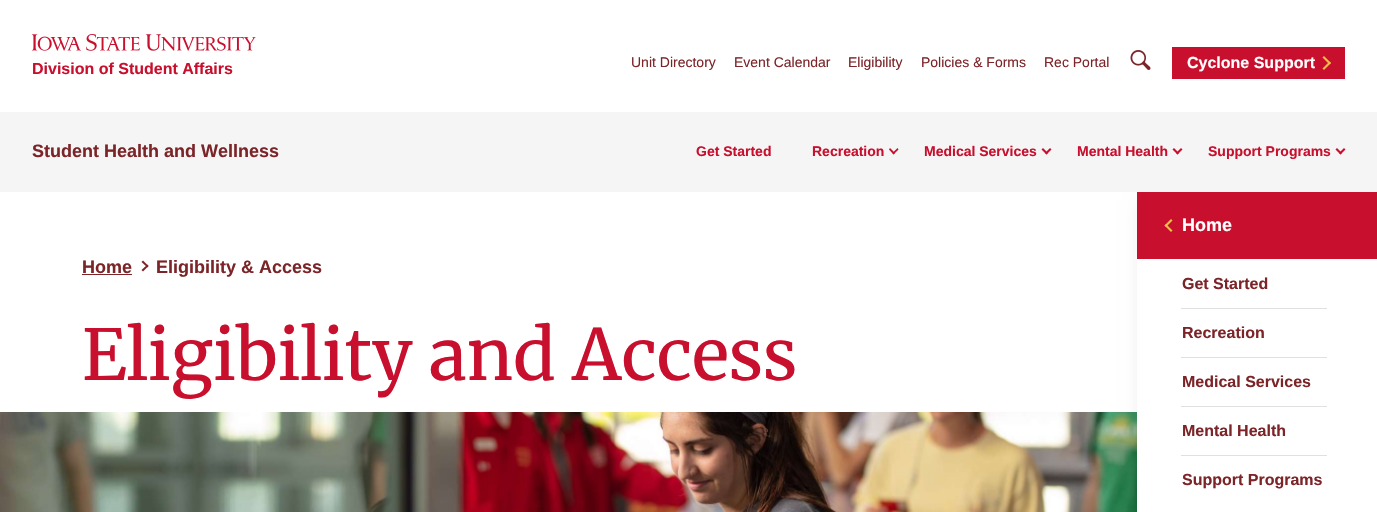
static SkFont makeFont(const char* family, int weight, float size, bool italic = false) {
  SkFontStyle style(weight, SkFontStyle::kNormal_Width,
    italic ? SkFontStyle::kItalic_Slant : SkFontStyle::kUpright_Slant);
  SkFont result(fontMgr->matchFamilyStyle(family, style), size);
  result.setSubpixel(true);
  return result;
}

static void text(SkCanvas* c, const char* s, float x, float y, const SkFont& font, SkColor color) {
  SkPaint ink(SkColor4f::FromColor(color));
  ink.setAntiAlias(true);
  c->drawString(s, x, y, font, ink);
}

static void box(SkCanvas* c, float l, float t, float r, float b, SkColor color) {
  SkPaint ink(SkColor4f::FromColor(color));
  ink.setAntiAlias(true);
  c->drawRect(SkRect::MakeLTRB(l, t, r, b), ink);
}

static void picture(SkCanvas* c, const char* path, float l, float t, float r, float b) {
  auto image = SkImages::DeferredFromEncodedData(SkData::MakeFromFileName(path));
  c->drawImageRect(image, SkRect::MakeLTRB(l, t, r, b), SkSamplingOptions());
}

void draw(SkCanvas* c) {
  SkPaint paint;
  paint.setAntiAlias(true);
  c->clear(0xffffffff);
  picture(c, "img_01.png", 32, 34, 256, 51);
  SkFont face1 = makeFont("Liberation Sans", 700, 16);
  text(c, "Division of Student Affairs", 32, 74, face1, 0xffc8102e);
  SkFont face2 = makeFont("Liberation Sans", 400, 14);
  text(c, "Unit Directory", 631, 67, face2, 0xff7c2529);
  text(c, "Event Calendar", 734, 67, face2, 0xff7c2529);
  text(c, "Eligibility", 848, 67, face2, 0xff7c2529);
  text(c, "Policies & Forms", 921, 67, face2, 0xff7c2529);
  text(c, "Rec Portal", 1044, 67, face2, 0xff7c2529);
  picture(c, "img_02.png", 1130, 50, 1151, 70);
  box(c, 1172, 47, 1345, 79, 0xffc8102e);
  text(c, "Cyclone Support", 1187, 68, face1, 0xffffffff);
  paint.setColor(0xfff1be48);
  c->drawPath(SkPathBuilder().moveTo(1322.5f, 57.5f).lineTo(1324, 56).lineTo(1331, 63).lineTo(1329.5f, 64.5f).close().detach(), paint);
  c->drawPath(SkPathBuilder().moveTo(1322.5f, 68.5f).lineTo(1329.5f, 61.5f).lineTo(1331, 63).lineTo(1324, 70).close().detach(), paint);
  picture(c, "img_03.png", 0, 412, 1137, 512);
  paint.setColor(0x26000000);
  paint.setMaskFilter(SkMaskFilter::MakeBlur(kNormal_SkBlurStyle, 10));
  c->drawRect(SkRect::MakeLTRB(1146, 201, 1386, 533), paint);
  paint.setMaskFilter(nullptr);
  box(c, 0, 112, 1377, 192, 0xfff5f5f5);
  SkFont face3 = makeFont("Liberation Sans", 700, 18);
  text(c, "Student Health and Wellness", 32, 157, face3, 0xff7c2529);
  SkFont face4 = makeFont("Liberation Sans", 700, 14);
  text(c, "Get Started", 696, 156, face4, 0xffc8102e);
  text(c, "Recreation", 812, 156, face4, 0xffc8102e);
  paint.setColor(0xffc8102e);
  c->drawPath(SkPathBuilder().moveTo(897.5f, 148).lineTo(898.5f, 149.5f).lineTo(893.5f, 154.5f).lineTo(892.5f, 153).close().detach(), paint);
  c->drawPath(SkPathBuilder().moveTo(890, 148).lineTo(895, 153).lineTo(893.5f, 154.5f).lineTo(889, 149.5f).close().detach(), paint);
  text(c, "Medical Services", 924, 156, face4, 0xffc8102e);
  c->drawPath(SkPathBuilder().moveTo(1050, 148).lineTo(1051.5f, 149.5f).lineTo(1046.5f, 154.5f).lineTo(1045, 153).close().detach(), paint);
  c->drawPath(SkPathBuilder().moveTo(1043, 148).lineTo(1048, 153).lineTo(1046.5f, 154.5f).lineTo(1041.5f, 149.5f).close().detach(), paint);
  text(c, "Mental Health", 1077, 156, face4, 0xffc8102e);
  c->drawPath(SkPathBuilder().moveTo(1181, 148).lineTo(1182.5f, 149.5f).lineTo(1177.5f, 154.5f).lineTo(1176, 153).close().detach(), paint);
  c->drawPath(SkPathBuilder().moveTo(1174, 148).lineTo(1179, 153).lineTo(1177.5f, 154.5f).lineTo(1172.5f, 149.5f).close().detach(), paint);
  text(c, "Support Programs", 1208, 156, face4, 0xffc8102e);
  c->drawPath(SkPathBuilder().moveTo(1344, 148).lineTo(1345.5f, 149.5f).lineTo(1340.5f, 154.5f).lineTo(1339, 153).close().detach(), paint);
  c->drawPath(SkPathBuilder().moveTo(1337, 148).lineTo(1342, 153).lineTo(1340.5f, 154.5f).lineTo(1335.5f, 149.5f).close().detach(), paint);
  text(c, "Home", 82, 273, face3, 0xff7c2529);
  box(c, 82, 274, 132, 275, 0xff7c2529);
  paint.setColor(0xff7c2529);
  c->drawPath(SkPathBuilder().moveTo(141.5f, 262).lineTo(143, 260.5f).lineTo(148.5f, 266).lineTo(147.5f, 267.5f).close().detach(), paint);
  c->drawPath(SkPathBuilder().moveTo(141.5f, 270).lineTo(147.5f, 264.5f).lineTo(148.5f, 266).lineTo(143, 271.5f).close().detach(), paint);
  text(c, "Eligibility & Access", 156, 273, face3, 0xff7c2529);
  SkFont face5 = makeFont("Merriweather", 400, 70);
  text(c, "Eligibility and Access", 82, 380, face5, 0xffc8102e);
  box(c, 1137, 259, 1377, 512, 0xffffffff);
  box(c, 1137, 192, 1377, 259, 0xffc8102e);
  paint.setColor(0xfff1be48);
  c->drawPath(SkPathBuilder().moveTo(1172.5f, 230.5f).lineTo(1171, 232).lineTo(1164.5f, 225.5f).lineTo(1166, 224).close().detach(), paint);
  c->drawPath(SkPathBuilder().moveTo(1172.5f, 220.5f).lineTo(1166, 227).lineTo(1164.5f, 225.5f).lineTo(1171, 219).close().detach(), paint);
  text(c, "Home", 1182, 231, face3, 0xffffffff);
  text(c, "Get Started", 1182, 289, face1, 0xff7c2529);
  box(c, 1181, 308, 1327, 309, 0xffe0e0e0);
  text(c, "Recreation", 1182, 338, face1, 0xff7c2529);
  box(c, 1181, 357, 1327, 358, 0xffe0e0e0);
  text(c, "Medical Services", 1182, 387, face1, 0xff7c2529);
  box(c, 1181, 406, 1327, 407, 0xffe0e0e0);
  text(c, "Mental Health", 1182, 436, face1, 0xff7c2529);
  box(c, 1181, 455, 1327, 456, 0xffe0e0e0);
  text(c, "Support Programs", 1182, 485, face1, 0xff7c2529);
}
